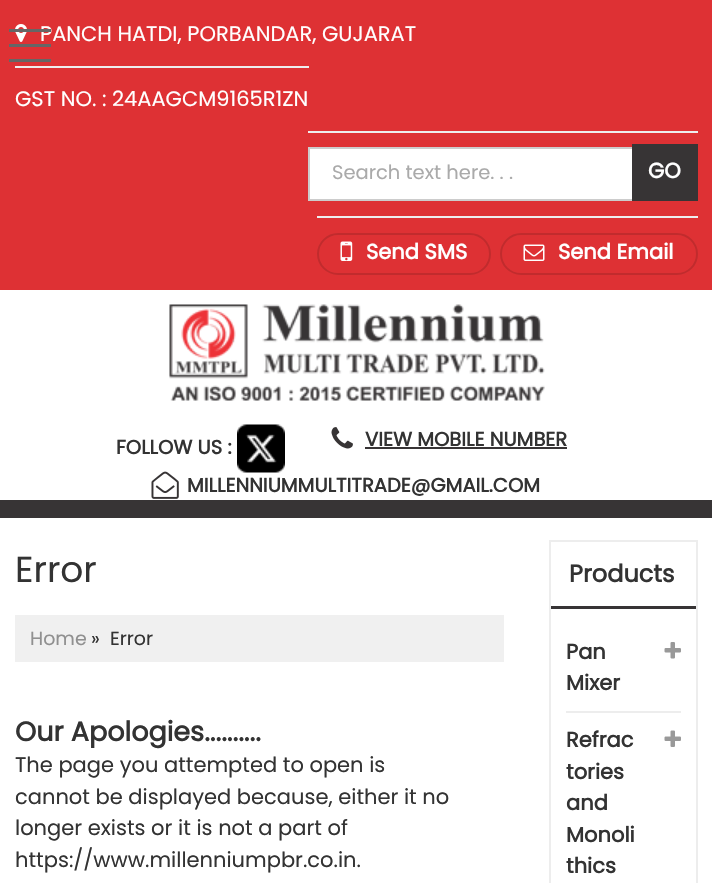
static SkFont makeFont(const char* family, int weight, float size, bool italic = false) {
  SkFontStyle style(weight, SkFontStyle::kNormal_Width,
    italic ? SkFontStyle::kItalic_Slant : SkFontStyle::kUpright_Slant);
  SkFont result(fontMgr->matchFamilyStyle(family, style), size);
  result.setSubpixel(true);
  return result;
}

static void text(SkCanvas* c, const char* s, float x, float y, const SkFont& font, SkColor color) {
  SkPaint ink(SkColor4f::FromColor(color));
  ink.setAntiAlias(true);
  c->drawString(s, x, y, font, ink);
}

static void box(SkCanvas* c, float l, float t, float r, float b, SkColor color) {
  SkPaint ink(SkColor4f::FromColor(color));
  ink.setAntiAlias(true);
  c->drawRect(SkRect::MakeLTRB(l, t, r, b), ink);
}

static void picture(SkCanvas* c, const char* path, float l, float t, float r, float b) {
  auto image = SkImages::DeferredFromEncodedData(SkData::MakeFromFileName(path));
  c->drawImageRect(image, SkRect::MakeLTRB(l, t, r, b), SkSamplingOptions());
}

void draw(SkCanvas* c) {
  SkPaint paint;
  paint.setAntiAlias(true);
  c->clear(0xffffffff);
  box(c, 0, 0, 712, 290, 0xffde3134);
  picture(c, "img_01.png", 15, 24, 27, 42);
  SkFont face1 = makeFont("Poppins", 400, 21);
  text(c, "PANCH HATDI, PORBANDAR, GUJARAT", 40, 41, face1, 0xffffffff);
  box(c, 15, 66, 309, 68, 0xffeeeeee);
  text(c, "GST NO. : 24AAGCM9165R1ZN", 15, 106, face1, 0xffffffff);
  box(c, 308, 131, 698, 133, 0xffeeeeee);
  box(c, 310, 149, 632, 199, 0xffffffff);
  paint.setStyle(SkPaint::kStroke_Style);
  paint.setStrokeWidth(2);
  paint.setColor(0xffcccccc);
  c->drawRect(SkRect::MakeLTRB(309, 148, 641, 200), paint);
  SkFont face2 = makeFont("Poppins", 400, 19.5f);
  text(c, "Search text here. . .", 332, 179, face2, 0xffaaaaaa);
  box(c, 632, 144, 698, 201, 0xff373435);
  SkFont face3 = makeFont("Poppins", 700, 21);
  text(c, "GO", 648, 178, face3, 0xffffffff);
  box(c, 317, 216, 698, 218, 0xffeeeeee);
  paint.setColor(0xffc12b2d);
  c->drawRoundRect(SkRect::MakeLTRB(318, 234, 490, 274), 20, 20, paint);
  picture(c, "img_02.png", 340, 241, 353, 261);
  text(c, "Send SMS", 366, 259, face3, 0xffffffff);
  c->drawRoundRect(SkRect::MakeLTRB(501, 234, 697, 274), 20, 20, paint);
  picture(c, "img_03.png", 523, 244, 545, 261);
  text(c, "Send Email", 558, 259, face3, 0xffffffff);
  box(c, 0, 500, 712, 518, 0xff373435);
  box(c, 9, 44, 51, 47, 0xff666666);
  box(c, 9, 29, 51, 32, 0xff666666);
  box(c, 9, 59, 51, 62, 0xff666666);
  picture(c, "img_04.png", 169, 304, 545, 401);
  SkFont face4 = makeFont("Poppins", 700, 19.5f);
  text(c, "FOLLOW US :", 116, 454, face4, 0xff333333);
  picture(c, "img_05.png", 237, 424, 285, 473);
  picture(c, "img_06.png", 331, 427, 353, 449);
  text(c, "VIEW MOBILE NUMBER", 365, 446, face4, 0xff333333);
  box(c, 365, 447, 567, 449, 0xff373435);
  picture(c, "img_07.png", 151, 471, 179, 499);
  text(c, "MILLENNIUMMULTITRADE@GMAIL.COM", 187, 492, face4, 0xff333333);
  SkFont face5 = makeFont("Poppins", 400, 36);
  text(c, "Error", 15, 582, face5, 0xff333333);
  box(c, 15, 615, 504, 662, 0xfff0f0f0);
  SkFont face6 = makeFont("Poppins", 400, 19);
  text(c, "Home", 30, 645, face6, 0xff909090);
  text(c, "»  Error", 91, 645, face6, 0xff333333);
  SkFont face7 = makeFont("Poppins", 700, 27);
  text(c, "Our Apologies..........", 15, 741, face7, 0xff333333);
  text(c, "The page you attempted to open is", 15, 772, face1, 0xff333333);
  text(c, "cannot be displayed because, either it no", 15, 804, face1, 0xff333333);
  text(c, "longer exists or it is not a part of", 15, 835, face1, 0xff333333);
  text(c, "https://www.millenniumpbr.co.in.", 15, 867, face1, 0xff333333);
  paint.setColor(0xffededed);
  c->drawRect(SkRect::MakeLTRB(550, 541, 697, 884), paint);
  box(c, 551, 606, 696, 609, 0xff373435);
  SkFont face8 = makeFont("Poppins", 700, 24);
  text(c, "Products", 569, 582, face8, 0xff333333);
  box(c, 566, 711, 681, 713, 0xffededed);
  text(c, "Pan", 566, 659, face3, 0xff333333);
  text(c, "Mixer", 566, 690, face3, 0xff333333);
  picture(c, "img_08.png", 664, 642, 681, 659);
  text(c, "Refrac", 566, 747, face3, 0xff333333);
  text(c, "tories", 566, 779, face3, 0xff333333);
  text(c, "and", 566, 810, face3, 0xff333333);
  text(c, "Monoli", 566, 842, face3, 0xff333333);
  text(c, "thics", 566, 873, face3, 0xff333333);
  picture(c, "img_09.png", 664, 730, 681, 747);
}
